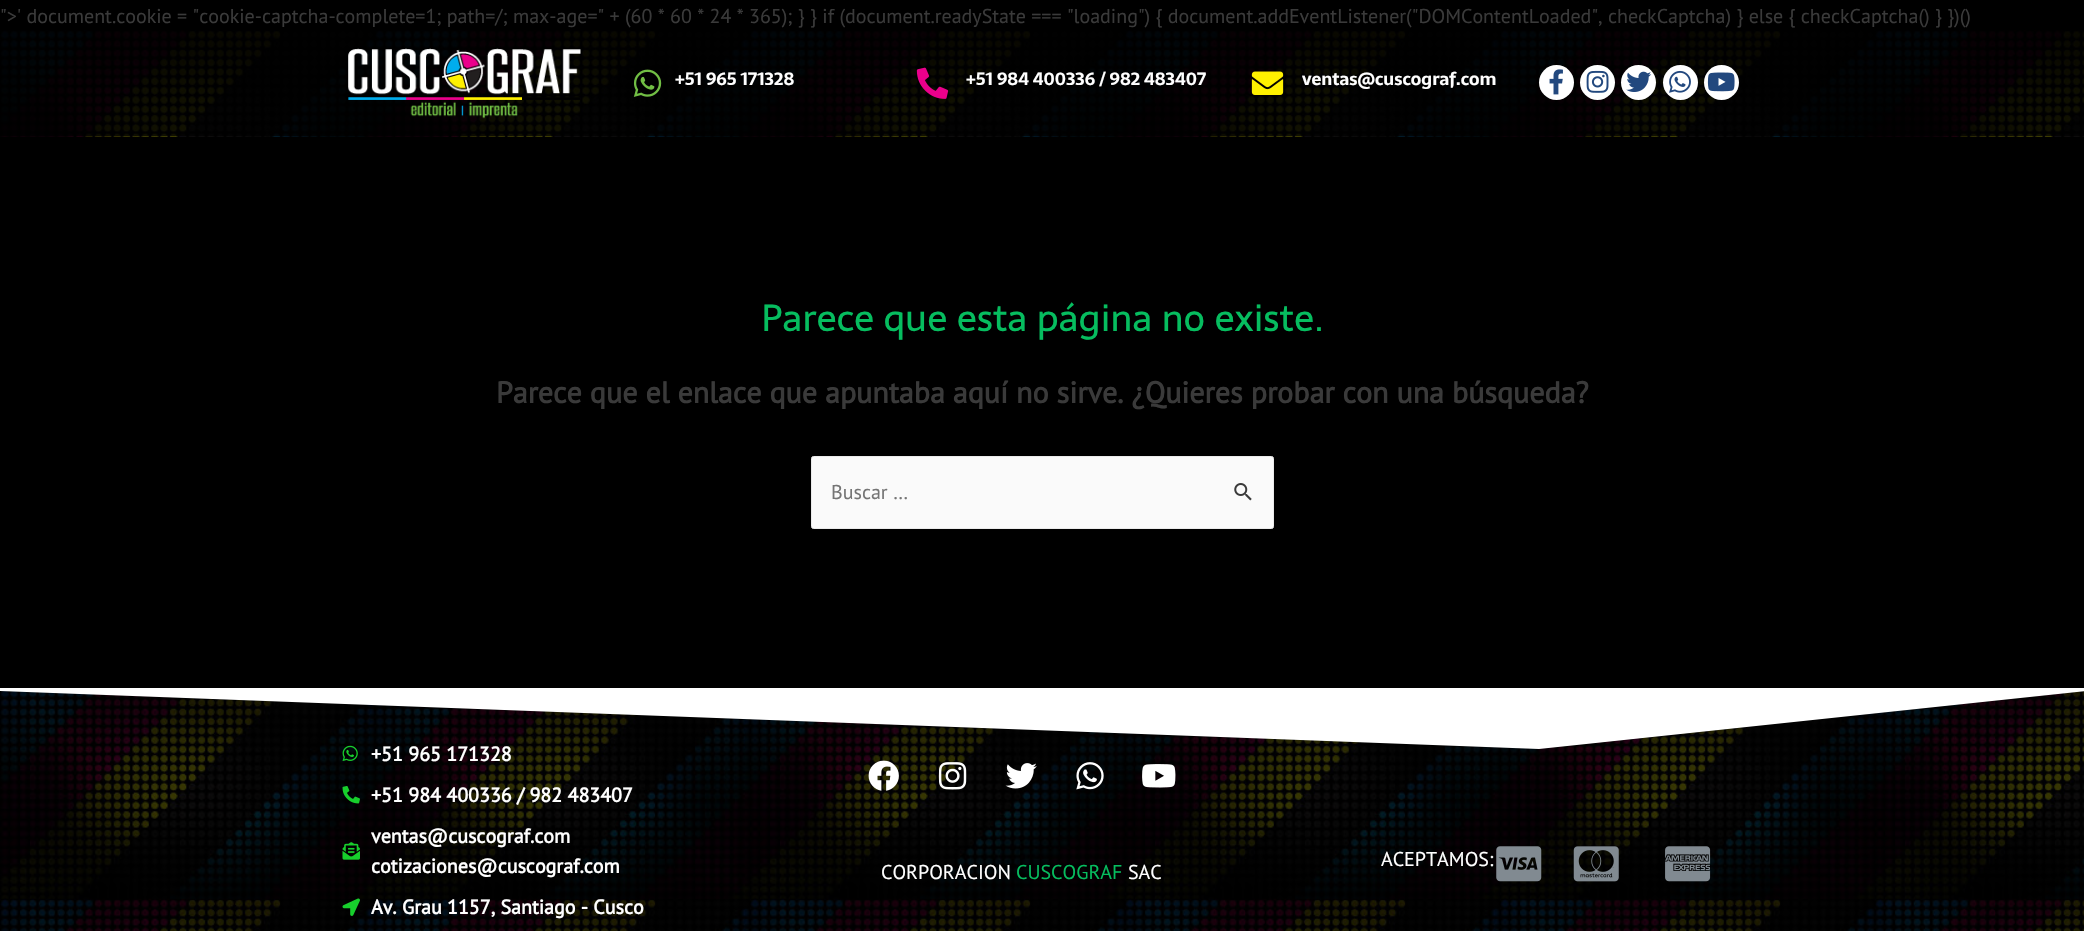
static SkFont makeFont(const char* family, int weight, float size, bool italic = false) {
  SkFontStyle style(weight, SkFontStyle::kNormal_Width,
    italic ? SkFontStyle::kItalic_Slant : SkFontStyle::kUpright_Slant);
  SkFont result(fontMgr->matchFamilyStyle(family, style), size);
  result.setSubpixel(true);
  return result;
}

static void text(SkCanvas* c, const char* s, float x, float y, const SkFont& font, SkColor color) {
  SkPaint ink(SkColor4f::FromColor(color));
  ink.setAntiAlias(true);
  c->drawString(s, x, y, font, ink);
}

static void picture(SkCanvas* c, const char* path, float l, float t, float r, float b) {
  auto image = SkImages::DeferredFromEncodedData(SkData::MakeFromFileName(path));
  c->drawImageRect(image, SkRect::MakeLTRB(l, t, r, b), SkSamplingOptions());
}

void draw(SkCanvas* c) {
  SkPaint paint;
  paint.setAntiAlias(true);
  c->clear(0xff000000);
  SkFont face1 = makeFont("PT Sans", 400, 20);
  text(c, "\">' document.cookie = \"cookie-captcha-complete=1; path=/; max-age=\" + (60 * 60 * 24 * 365); } } if (document.readyState === \"loading\") { document.addEventListener(\"DOMContentLoaded\", checkCaptcha) } else { checkCaptcha() } })()", 0, 23, face1, 0xff3a3a3a);
  picture(c, "img_01.png", 0, 30, 2084, 137);
  picture(c, "img_02.png", 348, 48, 581, 119);
  picture(c, "img_03.png", 633, 69, 662, 97);
  SkFont face2 = makeFont("Sarala", 700, 17.5f);
  text(c, "+51 965 171328", 675, 85, face2, 0xffffffff);
  picture(c, "img_04.png", 916, 67, 949, 99);
  text(c, "+51 984 400336 / 982 483407", 966, 85, face2, 0xffffffff);
  picture(c, "img_05.png", 1251, 71, 1284, 95);
  text(c, "ventas@cuscograf.com", 1302, 85, face2, 0xffffffff);
  paint.setColor(0xffffffff);
  c->drawCircle(1556.5f, 82.5f, 17.5f, paint);
  picture(c, "img_06.png", 1549, 69, 1563, 95);
  c->drawCircle(1597.5f, 82.5f, 17.5f, paint);
  picture(c, "img_07.png", 1586, 70, 1609, 93);
  c->drawCircle(1638.5f, 82.5f, 17.5f, paint);
  picture(c, "img_08.png", 1626, 71, 1652, 92);
  c->drawCircle(1680.5f, 82.5f, 17.5f, paint);
  picture(c, "img_09.png", 1669, 70, 1691, 93);
  c->drawCircle(1721.5f, 82.5f, 17.5f, paint);
  picture(c, "img_10.png", 1707, 72, 1735, 92);
  SkFont face3 = makeFont("Sarala", 400, 37.5f);
  text(c, "Parece que esta página no existe.", 761, 331, face3, 0xff06bd5f);
  SkFont face4 = makeFont("PT Sans", 700, 30);
  text(c, "Parece que el enlace que apuntaba aquí no sirve. ¿Quieres probar con una búsqueda?", 496, 403, face4, 0xff3a3a3a);
  paint.setColor(0xfffafafa);
  c->drawRoundRect(SkRect::MakeLTRB(811.5f, 456.5f, 1273.5f, 528.5f), 2, 2, paint);
  paint.setStyle(SkPaint::kStroke_Style);
  paint.setStrokeWidth(1);
  paint.setColor(0xffeaeaea);
  c->drawRoundRect(SkRect::MakeLTRB(811.5f, 456.5f, 1273.5f, 528.5f), 2, 2, paint);
  text(c, "Buscar …", 831, 499, face1, 0xff757575);
  picture(c, "img_11.png", 1234, 483, 1252, 501);
  picture(c, "img_12.png", 0, 691, 2084, 931);
  paint.setStyle(SkPaint::kFill_Style);
  paint.setColor(0xffffffff);
  c->drawPath(SkPathBuilder().moveTo(1539, 749).lineTo(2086, 691).lineTo(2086, 688).lineTo(-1, 688).lineTo(-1, 691).close().detach(), paint);
  picture(c, "img_13.png", 342, 745, 358, 761);
  SkFont face5 = makeFont("PT Sans", 700, 20);
  text(c, "+51 965 171328", 371, 761, face5, 0xffffffff);
  picture(c, "img_14.png", 342, 786, 360, 804);
  text(c, "+51 984 400336 / 982 483407", 371, 802, face5, 0xffffffff);
  picture(c, "img_15.png", 342, 842, 360, 860);
  text(c, "ventas@cuscograf.com", 371, 843, face5, 0xffffffff);
  text(c, "cotizaciones@cuscograf.com", 371, 873, face5, 0xffffffff);
  picture(c, "img_16.png", 342, 898, 360, 916);
  text(c, "Av. Grau 1157, Santiago - Cusco", 371, 914, face5, 0xffffffff);
  text(c, "ACEPTAMOS:", 1381, 866, face1, 0xffffffff);
  picture(c, "img_17.png", 1496, 846, 1542, 882);
  picture(c, "img_18.png", 1573, 846, 1619, 882);
  picture(c, "img_19.png", 1665, 846, 1711, 882);
  picture(c, "img_20.png", 868, 760, 899, 791);
  picture(c, "img_21.png", 938, 762, 967, 790);
  picture(c, "img_22.png", 1005, 763, 1037, 789);
  picture(c, "img_23.png", 1076, 762, 1104, 790);
  picture(c, "img_24.png", 1142, 764, 1176, 788);
  text(c, "CORPORACION", 881, 879, face1, 0xffffffff);
  text(c, "CUSCOGRAF", 1016, 879, face1, 0xff06bd5f);
  text(c, "SAC", 1128, 879, face1, 0xffffffff);
}
